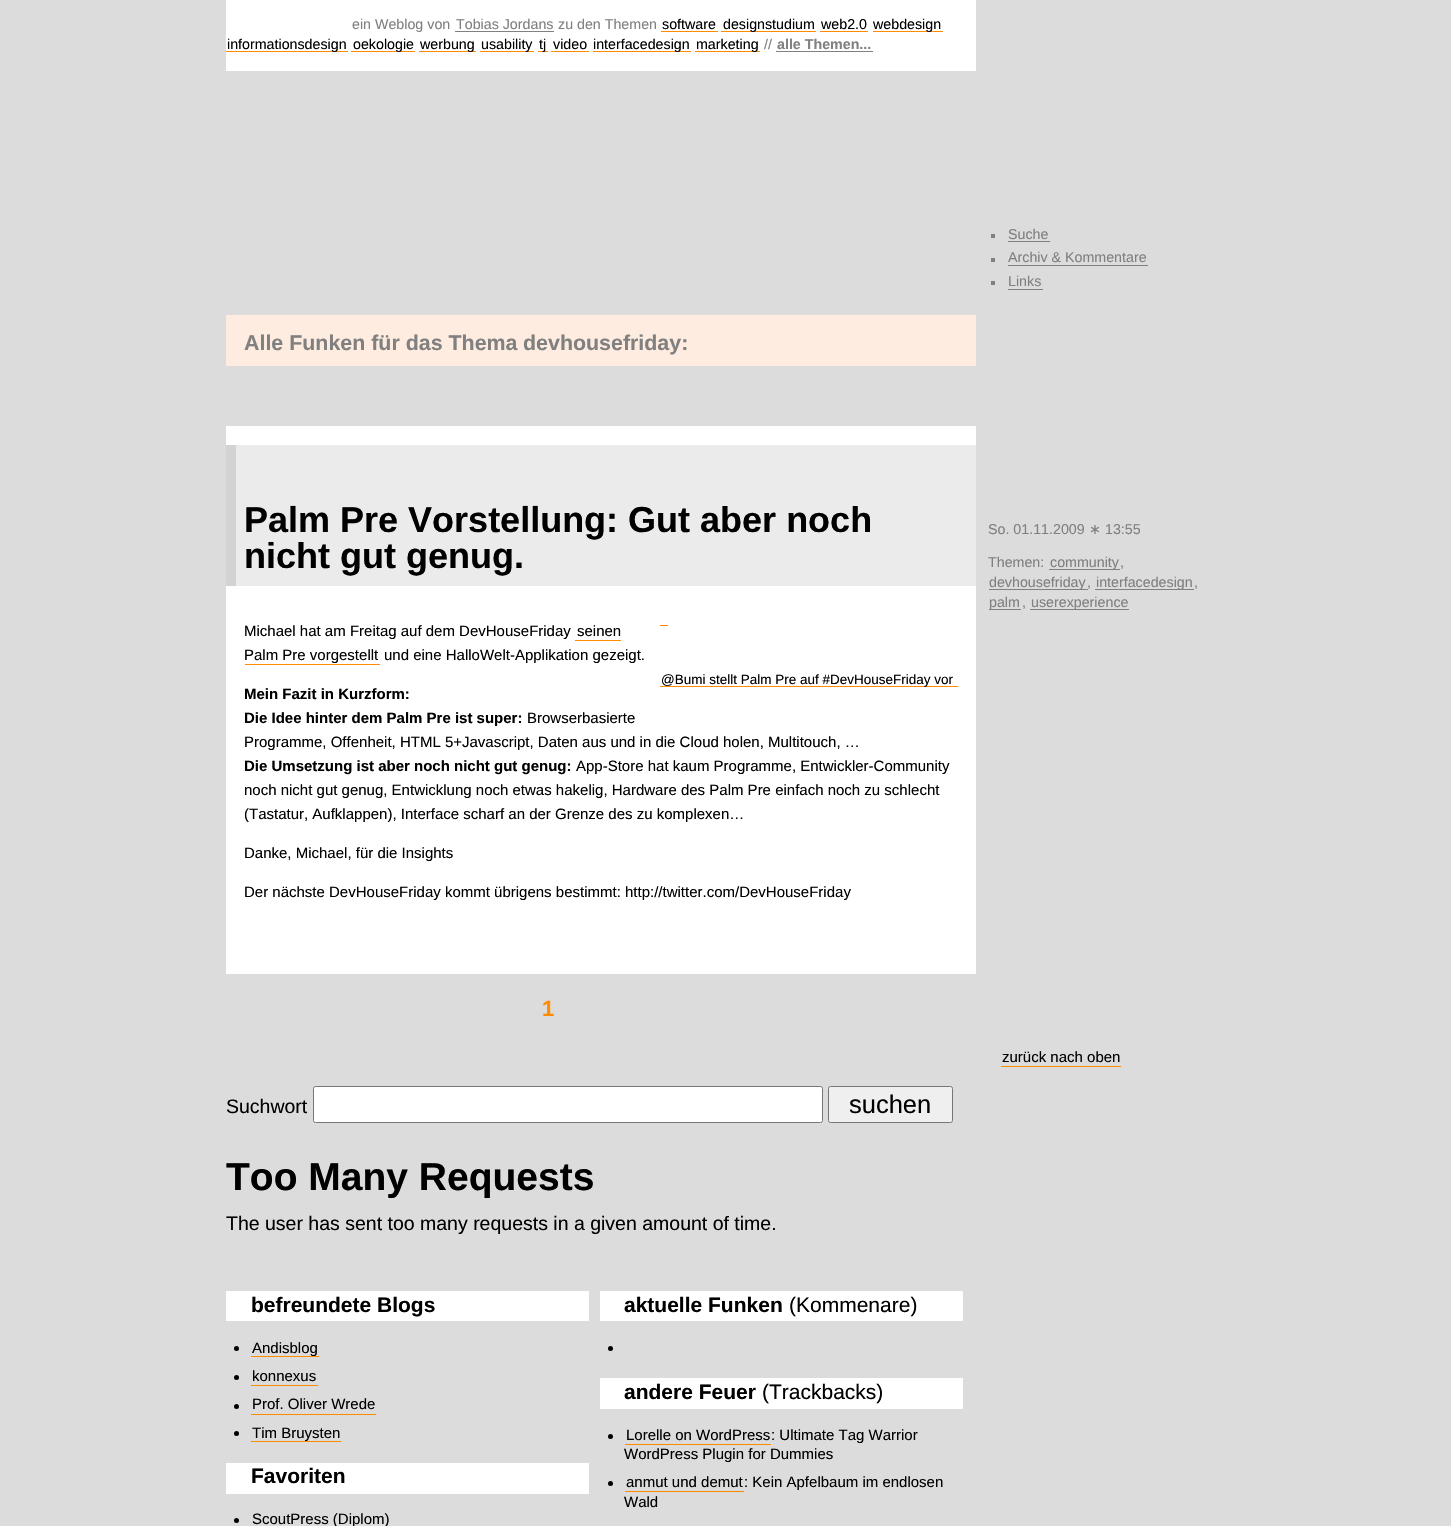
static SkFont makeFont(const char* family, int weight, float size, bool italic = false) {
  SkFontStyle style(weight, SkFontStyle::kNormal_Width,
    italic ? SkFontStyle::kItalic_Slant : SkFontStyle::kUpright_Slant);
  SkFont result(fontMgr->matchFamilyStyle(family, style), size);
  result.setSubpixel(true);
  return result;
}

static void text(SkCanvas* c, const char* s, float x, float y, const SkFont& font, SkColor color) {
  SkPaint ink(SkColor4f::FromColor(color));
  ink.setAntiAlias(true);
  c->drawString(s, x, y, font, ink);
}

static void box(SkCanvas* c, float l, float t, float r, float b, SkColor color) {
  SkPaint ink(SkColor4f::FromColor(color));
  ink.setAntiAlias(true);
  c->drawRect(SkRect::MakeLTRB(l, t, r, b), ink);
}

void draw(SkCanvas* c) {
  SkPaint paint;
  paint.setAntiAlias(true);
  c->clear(0xffdcdcdc);
  box(c, 226, 0, 976, 71, 0xffffffff);
  SkFont face1 = makeFont("Liberation Sans", 400, 14.25f);
  text(c, "ein Weblog von", 352, 29, face1, 0xff808080);
  text(c, "Tobias Jordans", 456, 29, face1, 0xff808080);
  box(c, 455, 31, 554, 32, 0xff808080);
  text(c, "zu den Themen", 558, 29, face1, 0xff808080);
  text(c, "software", 662, 29, face1, 0xff000000);
  box(c, 661, 31, 718, 32, 0xffff8c00);
  box(c, 721, 31, 816, 32, 0xffff8c00);
  text(c, "designstudium", 723, 29, face1, 0xff000000);
  text(c, "web2.0", 821, 29, face1, 0xff000000);
  box(c, 820, 31, 868, 32, 0xffff8c00);
  box(c, 873, 31, 943, 32, 0xffff8c00);
  text(c, "webdesign", 873, 29, face1, 0xff000000);
  box(c, 226, 51, 348, 52, 0xffff8c00);
  text(c, "informationsdesign", 227, 49, face1, 0xff000000);
  box(c, 351, 51, 415, 52, 0xffff8c00);
  text(c, "oekologie", 353, 49, face1, 0xff000000);
  box(c, 419, 51, 476, 52, 0xffff8c00);
  text(c, "werbung", 420, 49, face1, 0xff000000);
  box(c, 480, 51, 534, 52, 0xffff8c00);
  text(c, "usability", 481, 49, face1, 0xff000000);
  box(c, 538, 51, 548, 52, 0xffff8c00);
  text(c, "tj", 539, 49, face1, 0xff000000);
  text(c, "video", 553, 49, face1, 0xff000000);
  box(c, 551, 51, 589, 52, 0xffff8c00);
  box(c, 593, 51, 691, 52, 0xffff8c00);
  text(c, "interfacedesign", 593, 49, face1, 0xff000000);
  box(c, 695, 51, 760, 52, 0xffff8c00);
  text(c, "marketing", 696, 49, face1, 0xff000000);
  text(c, "//", 764, 49, face1, 0xff808080);
  SkFont face2 = makeFont("Liberation Sans", 700, 14.25f);
  text(c, "alle Themen...", 777, 49, face2, 0xff808080);
  box(c, 776, 51, 873, 52, 0xff808080);
  box(c, 991, 234, 995, 238, 0xff808080);
  text(c, "Suche", 1008, 239, face1, 0xff808080);
  box(c, 1008, 241, 1050, 242, 0xff808080);
  box(c, 991, 258, 995, 262, 0xff808080);
  text(c, "Archiv & Kommentare", 1008, 262, face1, 0xff808080);
  box(c, 1008, 265, 1148, 266, 0xff808080);
  box(c, 991, 281, 995, 285, 0xff808080);
  text(c, "Links", 1008, 286, face1, 0xff808080);
  box(c, 1008, 289, 1043, 290, 0xff808080);
  box(c, 226, 315, 976, 366, 0xffffece0);
  SkFont face3 = makeFont("Liberation Sans", 700, 21.4f);
  text(c, "Alle Funken für das Thema", 244, 350, face3, 0xff808080);
  text(c, "devhousefriday:", 523, 350, face3, 0xff808080);
  box(c, 226, 445, 236, 586, 0xffd3d3d3);
  box(c, 226, 426, 976, 445, 0xffffffff);
  box(c, 236, 445, 976, 586, 0xffebebeb);
  SkFont face4 = makeFont("Liberation Sans", 700, 36);
  text(c, "Palm Pre Vorstellung: Gut aber noch", 244, 532, face4, 0xff000000);
  text(c, "nicht gut genug.", 244, 568, face4, 0xff000000);
  box(c, 226, 586, 976, 974, 0xffffffff);
  SkFont face5 = makeFont("Liberation Sans", 400, 15);
  text(c, "Michael hat am Freitag auf dem DevHouseFriday", 244, 636, face5, 0xff000000);
  text(c, "seinen", 577, 636, face5, 0xff000000);
  box(c, 575, 640, 621, 641, 0xffff8c00);
  text(c, "Palm Pre vorgestellt", 244, 660, face5, 0xff000000);
  box(c, 245, 664, 380, 665, 0xffff8c00);
  text(c, "und eine HalloWelt-Applikation gezeigt.", 384, 660, face5, 0xff000000);
  box(c, 660, 625, 668, 626, 0xffff8c00);
  box(c, 660, 686, 958, 687, 0xffff8c00);
  SkFont face6 = makeFont("Liberation Sans", 400, 13.5f);
  text(c, "@Bumi stellt Palm Pre auf #DevHouseFriday vor", 661, 684, face6, 0xff000000);
  SkFont face7 = makeFont("Liberation Sans", 700, 15);
  text(c, "Mein Fazit in Kurzform:", 244, 699, face7, 0xff000000);
  text(c, "Die Idee hinter dem Palm Pre ist super:", 244, 723, face7, 0xff000000);
  text(c, "Browserbasierte", 527, 723, face5, 0xff000000);
  text(c, "Programme, Offenheit, HTML 5+Javascript, Daten aus und in die Cloud holen, Multitouch, …", 244, 747, face5, 0xff000000);
  text(c, "Die Umsetzung ist aber noch nicht gut genug:", 244, 771, face7, 0xff000000);
  text(c, "App-Store hat kaum Programme, Entwickler-Community", 576, 771, face5, 0xff000000);
  text(c, "noch nicht gut genug, Entwicklung noch etwas hakelig, Hardware des Palm Pre einfach noch zu schlecht", 244, 795, face5, 0xff000000);
  text(c, "(Tastatur, Aufklappen), Interface scharf an der Grenze des zu komplexen…", 244, 819, face5, 0xff000000);
  text(c, "Danke, Michael, für die Insights", 244, 858, face5, 0xff000000);
  text(c, "Der nächste DevHouseFriday kommt übrigens bestimmt: http://twitter.com/DevHouseFriday", 244, 897, face5, 0xff000000);
  text(c, "So. 01.11.2009", 988, 534, face1, 0xff808080);
  SkFont face8 = makeFont("DejaVu Sans", 400, 14.25f);
  text(c, "∗", 1089, 534, face8, 0xff808080);
  text(c, "13:55", 1105, 534, face1, 0xff808080);
  text(c, "Themen:", 988, 567, face1, 0xff808080);
  box(c, 1049, 569, 1120, 570, 0xff808080);
  text(c, "community", 1050, 567, face1, 0xff808080);
  text(c, ",", 1120, 567, face1, 0xff808080);
  box(c, 989, 589, 1088, 590, 0xff808080);
  text(c, "devhousefriday", 989, 587, face1, 0xff808080);
  text(c, ",", 1087, 587, face1, 0xff808080);
  box(c, 1095, 589, 1194, 590, 0xff808080);
  text(c, "interfacedesign", 1096, 587, face1, 0xff808080);
  text(c, ",", 1194, 587, face1, 0xff808080);
  box(c, 989, 609, 1021, 610, 0xff808080);
  text(c, "palm", 989, 607, face1, 0xff808080);
  text(c, ",", 1022, 607, face1, 0xff808080);
  box(c, 1030, 609, 1129, 610, 0xff808080);
  text(c, "userexperience", 1031, 607, face1, 0xff808080);
  SkFont face9 = makeFont("Liberation Sans", 700, 22);
  text(c, "1", 542, 1016, face9, 0xffff8c00);
  text(c, "zurück nach oben", 1002, 1062, face5, 0xff000000);
  box(c, 1001, 1066, 1121, 1067, 0xffff8c00);
  SkFont face10 = makeFont("Liberation Sans", 400, 19.5f);
  text(c, "Suchwort", 226, 1113, face10, 0xff000000);
  paint.setColor(0xffffffff);
  c->drawRoundRect(SkRect::MakeLTRB(313.5f, 1086.5f, 822.5f, 1122.5f), 2, 2, paint);
  paint.setStyle(SkPaint::kStroke_Style);
  paint.setStrokeWidth(1);
  paint.setColor(0xff767676);
  c->drawRoundRect(SkRect::MakeLTRB(313.5f, 1086.5f, 822.5f, 1122.5f), 2, 2, paint);
  paint.setStyle(SkPaint::kFill_Style);
  paint.setColor(0xffefefef);
  c->drawRoundRect(SkRect::MakeLTRB(828.5f, 1086.5f, 952.5f, 1122.5f), 2, 2, paint);
  paint.setStyle(SkPaint::kStroke_Style);
  paint.setColor(0xff767676);
  c->drawRoundRect(SkRect::MakeLTRB(828.5f, 1086.5f, 952.5f, 1122.5f), 2, 2, paint);
  SkFont face11 = makeFont("Liberation Sans", 400, 25.5f);
  text(c, "suchen", 849, 1113, face11, 0xff000000);
  SkFont face12 = makeFont("Liberation Sans", 700, 39);
  text(c, "Too Many Requests", 226, 1190, face12, 0xff000000);
  text(c, "The user has sent too many requests in a given amount of time.", 226, 1230, face10, 0xff000000);
  box(c, 226, 1291, 589, 1321, 0xffffffff);
  SkFont face13 = makeFont("Liberation Sans", 700, 21);
  text(c, "befreundete Blogs", 251, 1312, face13, 0xff000000);
  paint.setStyle(SkPaint::kFill_Style);
  paint.setColor(0xff000000);
  c->drawCircle(236.5f, 1348.5f, 2.5f, paint);
  box(c, 251, 1356, 319, 1357, 0xffff8c00);
  text(c, "Andisblog", 252, 1353, face5, 0xff000000);
  c->drawCircle(236.5f, 1377.5f, 2.5f, paint);
  text(c, "konnexus", 252, 1381, face5, 0xff000000);
  box(c, 251, 1385, 318, 1386, 0xffff8c00);
  c->drawCircle(236.5f, 1406.5f, 2.5f, paint);
  text(c, "Prof. Oliver Wrede", 252, 1409, face5, 0xff000000);
  box(c, 251, 1414, 376, 1415, 0xffff8c00);
  c->drawCircle(236.5f, 1433.5f, 2.5f, paint);
  box(c, 251, 1441, 341, 1442, 0xffff8c00);
  text(c, "Tim Bruysten", 252, 1438, face5, 0xff000000);
  box(c, 226, 1463, 589, 1494, 0xffffffff);
  text(c, "Favoriten", 251, 1483, face13, 0xff000000);
  c->drawCircle(236.5f, 1520.5f, 2.5f, paint);
  text(c, "ScoutPress (Diplom)", 252, 1524, face5, 0xff000000);
  box(c, 600, 1291, 963, 1321, 0xffffffff);
  text(c, "aktuelle Funken", 624, 1312, face13, 0xff000000);
  SkFont face14 = makeFont("Liberation Sans", 400, 21);
  text(c, "(Kommenare)", 789, 1312, face14, 0xff000000);
  c->drawCircle(610.5f, 1348.5f, 2.5f, paint);
  box(c, 600, 1378, 963, 1409, 0xffffffff);
  text(c, "andere Feuer", 624, 1399, face13, 0xff000000);
  text(c, "(Trackbacks)", 762, 1399, face14, 0xff000000);
  c->drawCircle(610.5f, 1436.5f, 2.5f, paint);
  text(c, "Lorelle on WordPress", 626, 1440, face5, 0xff000000);
  box(c, 625, 1444, 771, 1445, 0xffff8c00);
  text(c, ": Ultimate Tag Warrior", 771, 1440, face5, 0xff000000);
  text(c, "WordPress Plugin for Dummies", 624, 1459, face5, 0xff000000);
  c->drawCircle(610.5f, 1483.5f, 2.5f, paint);
  text(c, "anmut und demut", 626, 1487, face5, 0xff000000);
  box(c, 625, 1491, 744, 1492, 0xffff8c00);
  text(c, ": Kein Apfelbaum im endlosen", 744, 1487, face5, 0xff000000);
  text(c, "Wald", 624, 1507, face5, 0xff000000);
}
